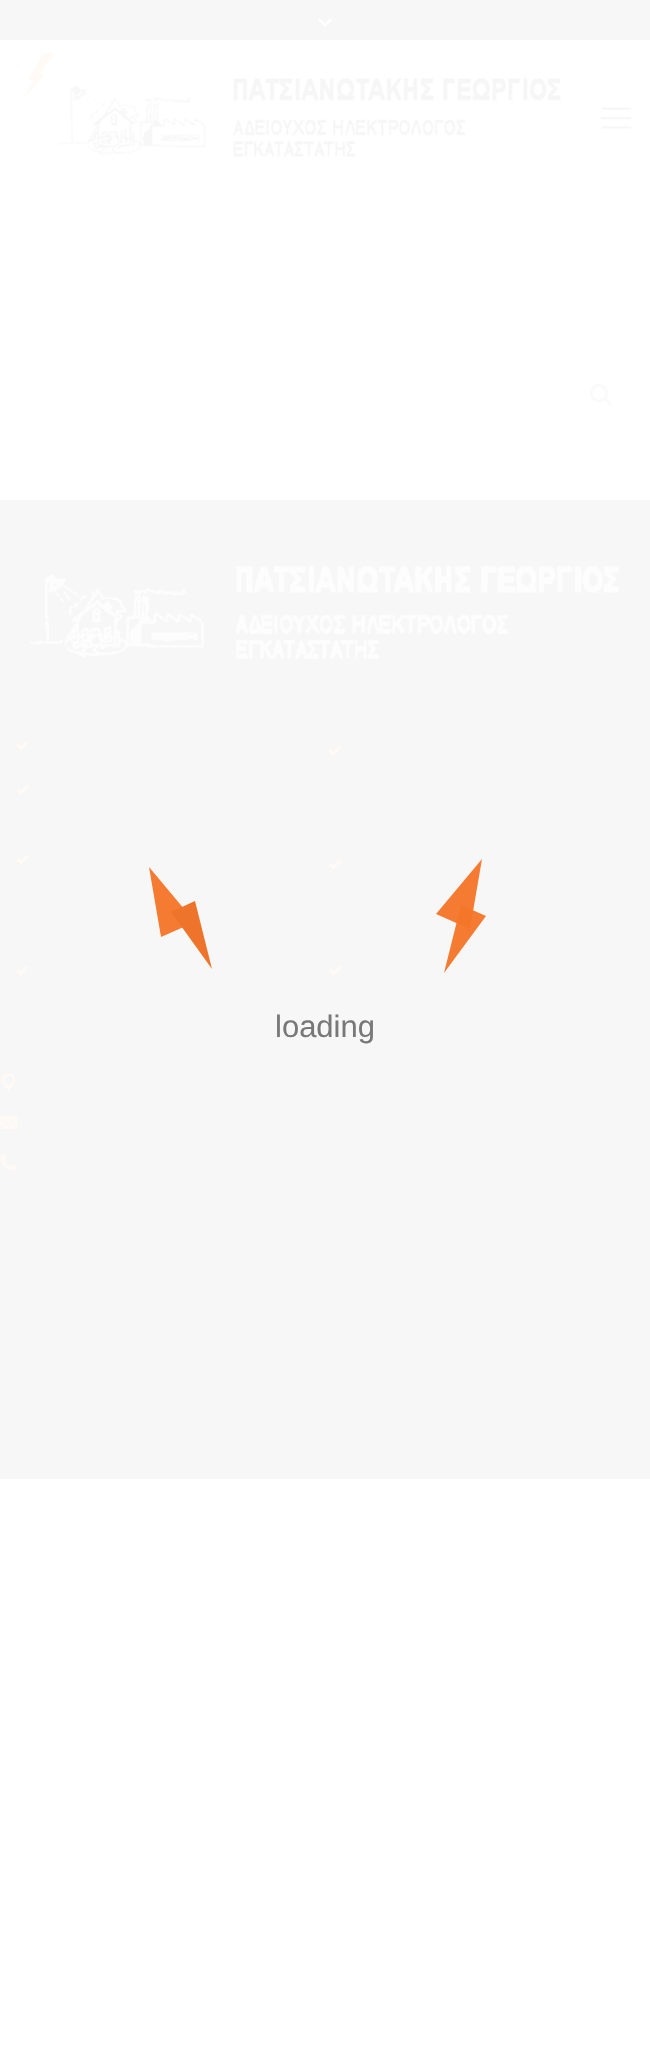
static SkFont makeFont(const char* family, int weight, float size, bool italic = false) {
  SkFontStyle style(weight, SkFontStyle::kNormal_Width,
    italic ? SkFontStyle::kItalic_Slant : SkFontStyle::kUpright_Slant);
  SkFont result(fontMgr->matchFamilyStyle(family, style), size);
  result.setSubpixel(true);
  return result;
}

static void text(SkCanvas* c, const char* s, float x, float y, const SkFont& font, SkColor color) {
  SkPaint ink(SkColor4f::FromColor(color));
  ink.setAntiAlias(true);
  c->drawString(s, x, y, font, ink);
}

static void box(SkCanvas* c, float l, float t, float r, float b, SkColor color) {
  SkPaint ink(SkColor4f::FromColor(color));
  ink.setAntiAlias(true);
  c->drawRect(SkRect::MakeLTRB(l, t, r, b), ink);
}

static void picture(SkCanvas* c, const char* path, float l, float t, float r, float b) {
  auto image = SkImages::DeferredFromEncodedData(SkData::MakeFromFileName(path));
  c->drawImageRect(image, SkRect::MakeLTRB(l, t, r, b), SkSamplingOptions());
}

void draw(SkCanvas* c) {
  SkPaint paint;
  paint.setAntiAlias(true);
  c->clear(0xffffffff);
  box(c, 0, 0, 650, 40, 0xfff7f7f7);
  paint.setColor(0xffffffff);
  c->drawPath(SkPathBuilder().moveTo(330.5f, 18).lineTo(332, 20).lineTo(325, 27).lineTo(323, 25.5f).close().detach(), paint);
  c->drawPath(SkPathBuilder().moveTo(319.5f, 18).lineTo(327, 25.5f).lineTo(325, 27).lineTo(318, 20).close().detach(), paint);
  picture(c, "img_01.png", 23, 52, 54, 99);
  picture(c, "img_02.png", 56, 76, 562, 159);
  picture(c, "img_03.png", 601, 107, 632, 129);
  picture(c, "img_04.png", 590, 383, 613, 407);
  box(c, 0, 500, 650, 1479, 0xfff7f7f7);
  picture(c, "img_05.png", 28, 564, 620, 662);
  picture(c, "img_06.png", 16, 740, 29, 751);
  picture(c, "img_07.png", 328, 745, 342, 756);
  picture(c, "img_08.png", 16, 784, 29, 795);
  picture(c, "img_08.png", 16, 854, 29, 865);
  picture(c, "img_09.png", 328, 859, 342, 870);
  picture(c, "img_06.png", 16, 965, 29, 976);
  picture(c, "img_07.png", 328, 965, 342, 976);
  picture(c, "img_10.png", 2, 1073, 16, 1091);
  picture(c, "img_11.png", 0, 1115, 18, 1129);
  picture(c, "img_12.png", 0, 1154, 17, 1171);
  paint.setColor(0xf5f47629);
  c->drawPath(SkPathBuilder().moveTo(195, 922).lineTo(161, 937).lineTo(149, 867).close().detach(), paint);
  paint.setColor(0xffed742a);
  c->drawPath(SkPathBuilder().moveTo(171, 912).lineTo(195, 901).lineTo(212, 969).close().detach(), paint);
  paint.setColor(0xf5f47629);
  c->drawPath(SkPathBuilder().moveTo(470, 929).lineTo(436, 914).lineTo(482, 859).close().detach(), paint);
  c->drawPath(SkPathBuilder().moveTo(461, 905).lineTo(486, 916).lineTo(444, 973).close().detach(), paint);
  SkFont face1 = makeFont("Liberation Sans", 400, 31);
  text(c, "loading", 275, 1037, face1, 0xff787879);
}
